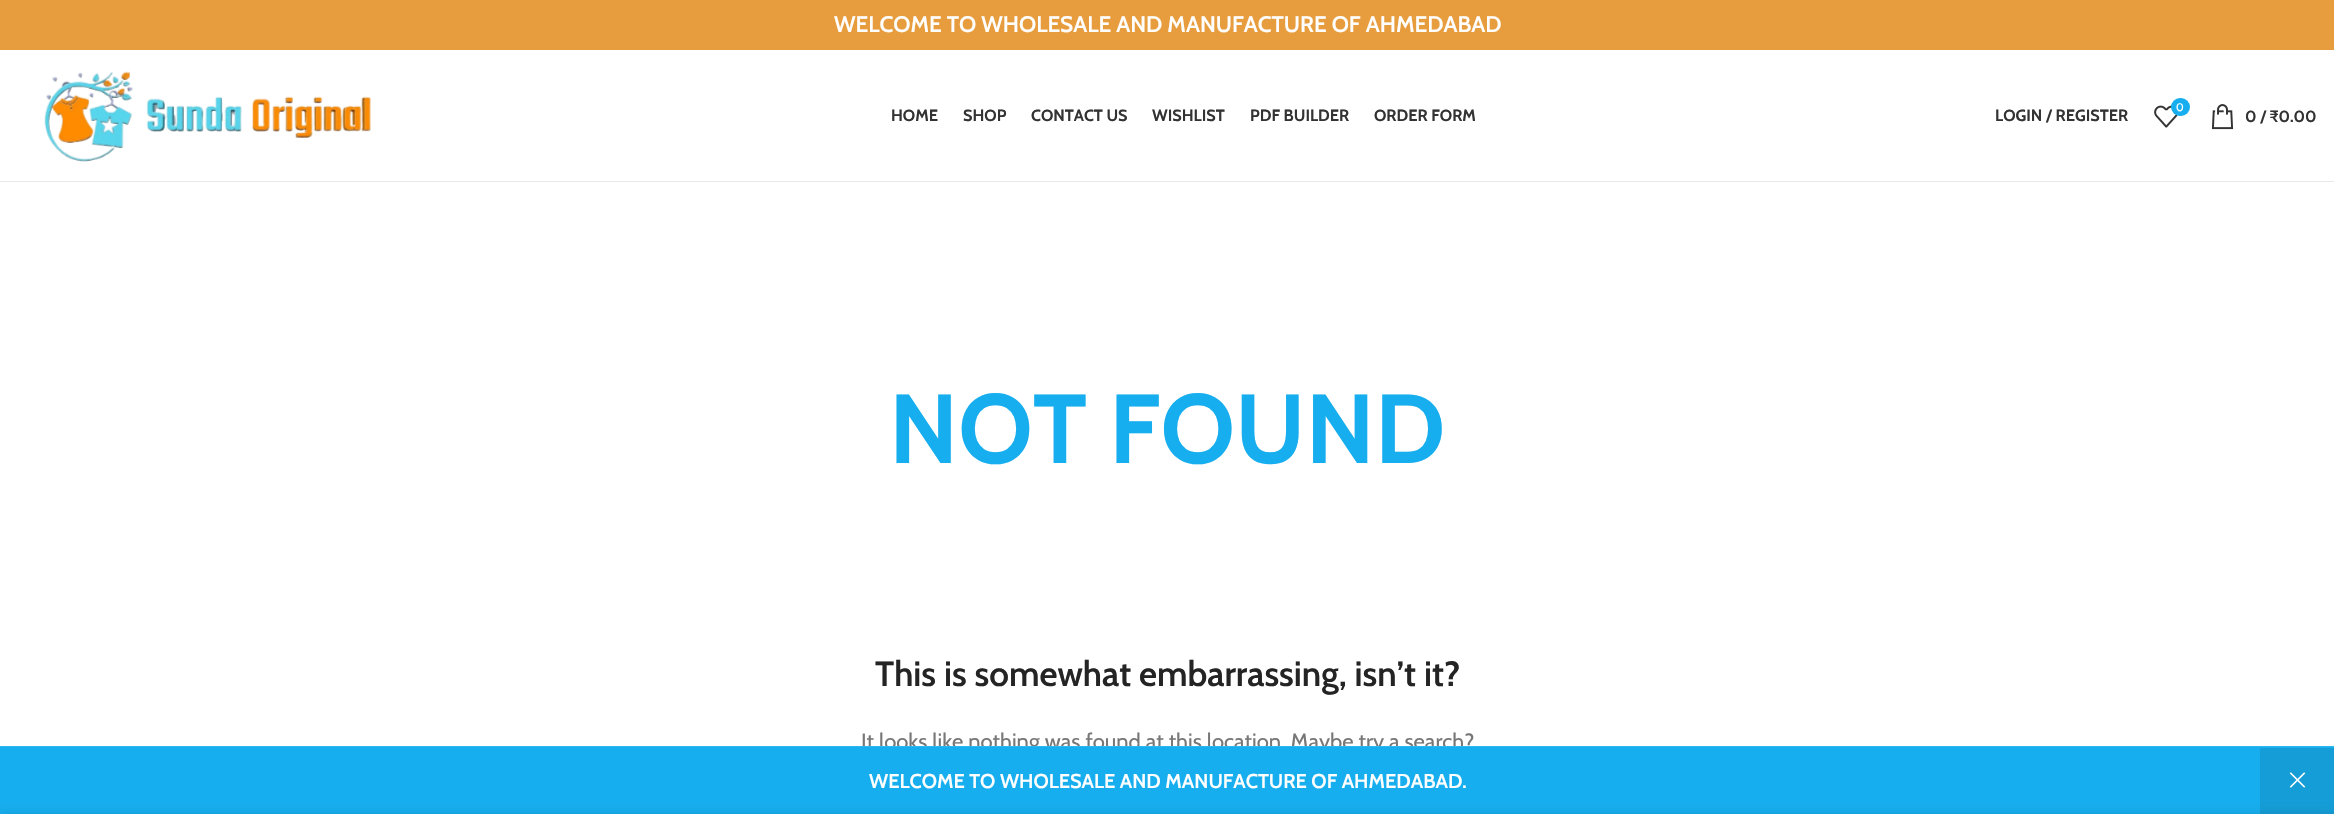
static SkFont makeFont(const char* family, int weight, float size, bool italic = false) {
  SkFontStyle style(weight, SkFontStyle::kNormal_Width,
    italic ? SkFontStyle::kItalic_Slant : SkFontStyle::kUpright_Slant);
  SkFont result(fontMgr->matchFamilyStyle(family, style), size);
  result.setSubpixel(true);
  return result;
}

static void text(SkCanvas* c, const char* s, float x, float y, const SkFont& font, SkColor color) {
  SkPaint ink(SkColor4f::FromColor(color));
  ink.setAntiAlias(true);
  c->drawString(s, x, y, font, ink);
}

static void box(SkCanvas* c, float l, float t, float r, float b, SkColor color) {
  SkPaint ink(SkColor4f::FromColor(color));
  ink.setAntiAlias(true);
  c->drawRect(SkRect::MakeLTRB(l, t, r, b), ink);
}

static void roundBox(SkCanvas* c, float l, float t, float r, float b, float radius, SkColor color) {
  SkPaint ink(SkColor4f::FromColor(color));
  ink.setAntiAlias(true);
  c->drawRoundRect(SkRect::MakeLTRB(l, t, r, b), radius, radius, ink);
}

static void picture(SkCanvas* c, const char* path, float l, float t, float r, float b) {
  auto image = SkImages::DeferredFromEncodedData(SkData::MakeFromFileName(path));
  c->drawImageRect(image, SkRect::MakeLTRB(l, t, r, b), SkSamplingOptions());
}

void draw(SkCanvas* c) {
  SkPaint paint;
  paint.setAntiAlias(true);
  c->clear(0xffffffff);
  box(c, 0, 0, 2334, 50, 0xffe79d3d);
  SkFont face1 = makeFont("Cabin", 600, 22.5f);
  text(c, "WELCOME TO WHOLESALE AND MANUFACTURE OF AHMEDABAD", 834, 32, face1, 0xffffffff);
  box(c, 0, 181, 2334, 182, 0xffe8e8e8);
  picture(c, "img_01.png", 44, 71, 371, 162);
  SkFont face2 = makeFont("Cabin", 700, 16.25f);
  text(c, "HOME", 891, 121, face2, 0xff333333);
  text(c, "SHOP", 963, 121, face2, 0xff333333);
  text(c, "CONTACT US", 1031, 121, face2, 0xff333333);
  text(c, "WISHLIST", 1152, 121, face2, 0xff333333);
  text(c, "PDF BUILDER", 1250, 121, face2, 0xff333333);
  text(c, "ORDER FORM", 1374, 121, face2, 0xff333333);
  picture(c, "img_02.png", 2154, 105, 2178, 128);
  roundBox(c, 2171, 98, 2190, 116, 9, 0xff17aeef);
  SkFont face3 = makeFont("Cabin", 400, 11);
  text(c, "0", 2176, 111, face3, 0xffffffff);
  text(c, "LOGIN / REGISTER", 1995, 121, face2, 0xff333333);
  picture(c, "img_03.png", 2211, 104, 2234, 130);
  text(c, "0 / ₹0.00", 2245, 122, face2, 0xff333333);
  SkFont face4 = makeFont("Cabin", 700, 98);
  text(c, "NOT FOUND", 889, 463, face4, 0xff17aeef);
  SkFont face5 = makeFont("Cabin", 600, 35);
  text(c, "This is somewhat embarrassing, isn’t it?", 875, 686, face5, 0xff242424);
  SkFont face6 = makeFont("Cabin", 400, 22);
  text(c, "It looks like nothing was found at this location. Maybe try a search?", 861, 749, face6, 0xff777777);
  box(c, 0, 747, 2334, 814, 0xff17aeef);
  box(c, 0, 746, 2334, 747, 0xff2eb6f1);
  SkFont face7 = makeFont("Cabin", 600, 20);
  text(c, "WELCOME TO WHOLESALE AND MANUFACTURE OF AHMEDABAD.", 869, 788, face7, 0xffffffff);
  box(c, 2260, 748, 2334, 814, 0xff159dd7);
  picture(c, "img_04.png", 2289, 772, 2306, 788);
  paint.setColor(0x24000000);
  paint.setMaskFilter(SkMaskFilter::MakeBlur(kNormal_SkBlurStyle, 5.5f));
  c->drawRect(SkRect::MakeLTRB(0, 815, 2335, 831), paint);
  paint.setMaskFilter(nullptr);
}
